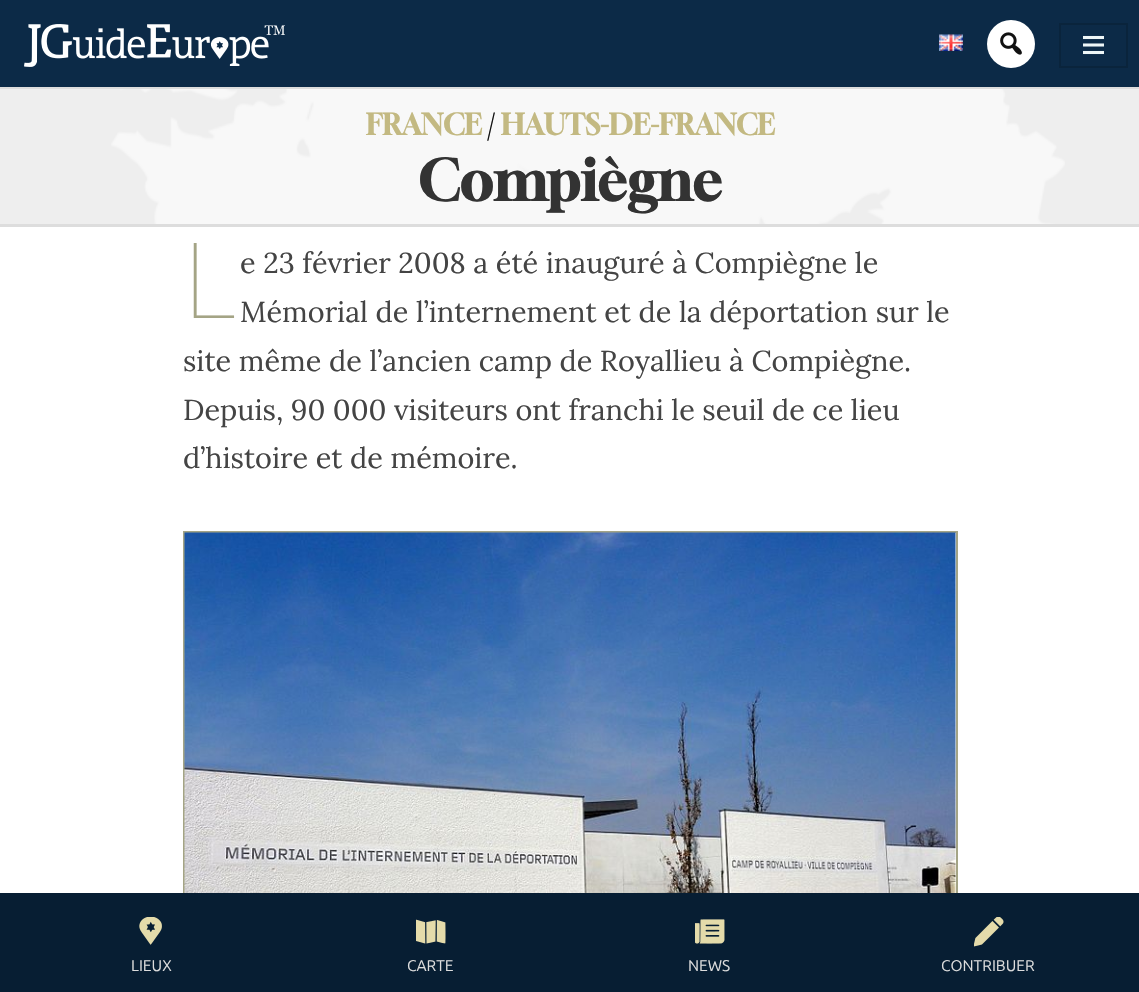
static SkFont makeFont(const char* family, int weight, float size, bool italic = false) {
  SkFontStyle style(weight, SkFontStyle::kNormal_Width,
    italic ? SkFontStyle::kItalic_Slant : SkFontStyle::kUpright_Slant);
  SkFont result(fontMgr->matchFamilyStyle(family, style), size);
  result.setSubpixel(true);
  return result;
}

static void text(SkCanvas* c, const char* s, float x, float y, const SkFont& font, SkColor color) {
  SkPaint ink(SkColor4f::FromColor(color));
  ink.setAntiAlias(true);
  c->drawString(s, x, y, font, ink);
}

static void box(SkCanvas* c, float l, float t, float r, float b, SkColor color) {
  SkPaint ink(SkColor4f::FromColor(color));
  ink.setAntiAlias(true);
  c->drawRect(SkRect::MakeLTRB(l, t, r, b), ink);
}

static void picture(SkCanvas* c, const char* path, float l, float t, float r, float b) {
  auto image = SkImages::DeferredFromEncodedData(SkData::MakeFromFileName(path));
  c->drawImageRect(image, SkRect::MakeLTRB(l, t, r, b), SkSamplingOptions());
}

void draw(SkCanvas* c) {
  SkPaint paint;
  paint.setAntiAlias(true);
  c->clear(0xffffffff);
  box(c, 0, 0, 1139, 87, 0xff0c2a47);
  picture(c, "img_01.png", 24, 24, 285, 67);
  picture(c, "img_02.png", 939, 34, 963, 51);
  paint.setColor(0xffffffff);
  c->drawCircle(1011, 44, 24, paint);
  picture(c, "img_03.png", 1000, 32, 1022, 55);
  paint.setStyle(SkPaint::kStroke_Style);
  paint.setStrokeWidth(2);
  paint.setColor(0xff0a243c);
  c->drawRect(SkRect::MakeLTRB(1060, 24, 1127, 67), paint);
  picture(c, "img_04.png", 1083, 35, 1104, 55);
  box(c, 0, 89, 1139, 224, 0xffeeeeee);
  picture(c, "img_05.png", 111, 89, 1065, 224);
  box(c, 0, 87, 1139, 89, 0xffdddddd);
  box(c, 0, 224, 1139, 227, 0xffdddddd);
  SkFont face1 = makeFont("Gloock", 700, 28.8f);
  text(c, "FRANCE", 366, 135, face1, 0xffc3b982);
  text(c, "/", 487, 135, face1, 0xff111111);
  text(c, "HAUTS-DE-FRANCE", 501, 135, face1, 0xffc3b982);
  SkFont face2 = makeFont("Gloock", 700, 55.5f);
  text(c, "Compiègne", 418, 201, face2, 0xff333333);
  SkFont face3 = makeFont("Noto Sans", 100, 105);
  text(c, "L", 183, 318, face3, 0xffa4a485);
  SkFont face4 = makeFont("Lora", 400, 28.8f);
  text(c, "e 23 février 2008 a été inauguré à Compiègne le", 240, 273, face4, 0xff444444);
  text(c, "Mémorial de l’internement et de la déportation sur le", 240, 322, face4, 0xff444444);
  text(c, "site même de l’ancien camp de Royallieu à Compiègne.", 183, 371, face4, 0xff444444);
  text(c, "Depuis, 90 000 visiteurs ont franchi le seuil de ce lieu", 183, 420, face4, 0xff444444);
  text(c, "d’histoire et de mémoire.", 183, 468, face4, 0xff444444);
  box(c, 183, 531, 957, 533, 0xffa4a485);
  box(c, 956, 531, 958, 893, 0xffa4a485);
  box(c, 183, 531, 185, 893, 0xffa4a485);
  picture(c, "img_06.png", 184, 532, 956, 893);
  box(c, 0, 893, 1139, 992, 0xff071e33);
  picture(c, "img_07.png", 139, 917, 162, 945);
  SkFont face5 = makeFont("Ubuntu Sans", 400, 15.5f);
  text(c, "LIEUX", 131, 971, face5, 0xffdddddd);
  picture(c, "img_08.png", 416, 919, 446, 944);
  text(c, "CARTE", 407, 971, face5, 0xffdddddd);
  picture(c, "img_09.png", 695, 919, 725, 944);
  text(c, "NEWS", 688, 971, face5, 0xffdddddd);
  picture(c, "img_10.png", 974, 917, 1004, 947);
  text(c, "CONTRIBUER", 941, 971, face5, 0xffdddddd);
}
